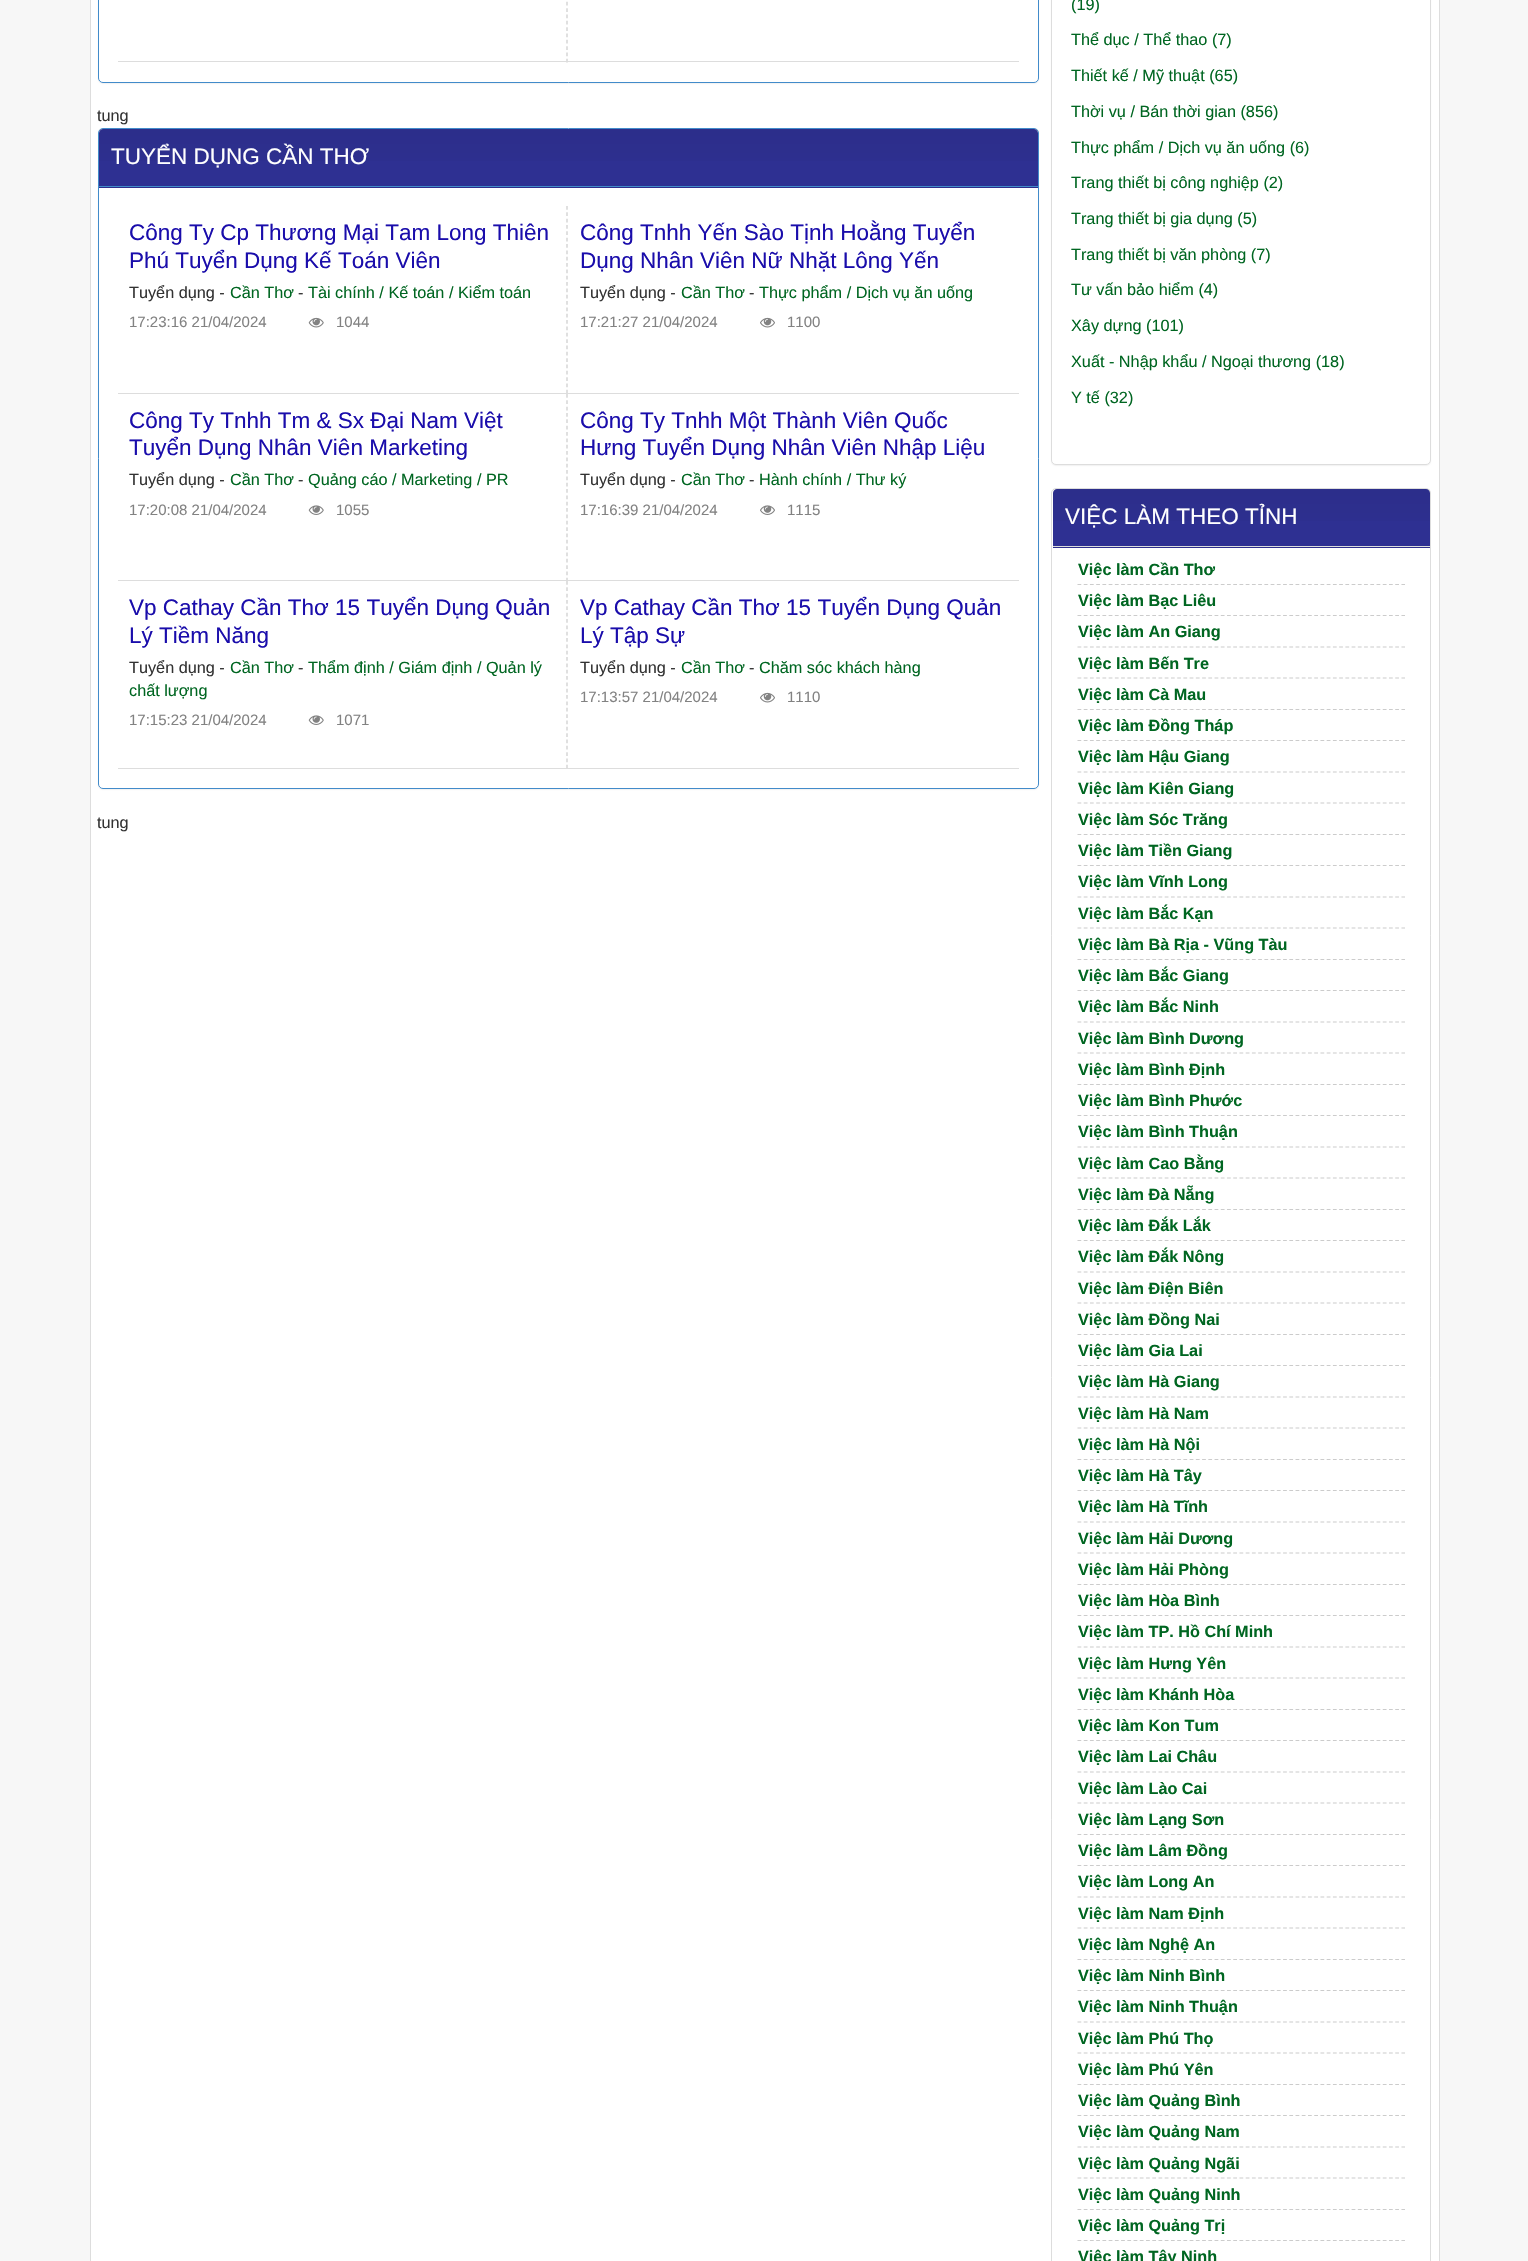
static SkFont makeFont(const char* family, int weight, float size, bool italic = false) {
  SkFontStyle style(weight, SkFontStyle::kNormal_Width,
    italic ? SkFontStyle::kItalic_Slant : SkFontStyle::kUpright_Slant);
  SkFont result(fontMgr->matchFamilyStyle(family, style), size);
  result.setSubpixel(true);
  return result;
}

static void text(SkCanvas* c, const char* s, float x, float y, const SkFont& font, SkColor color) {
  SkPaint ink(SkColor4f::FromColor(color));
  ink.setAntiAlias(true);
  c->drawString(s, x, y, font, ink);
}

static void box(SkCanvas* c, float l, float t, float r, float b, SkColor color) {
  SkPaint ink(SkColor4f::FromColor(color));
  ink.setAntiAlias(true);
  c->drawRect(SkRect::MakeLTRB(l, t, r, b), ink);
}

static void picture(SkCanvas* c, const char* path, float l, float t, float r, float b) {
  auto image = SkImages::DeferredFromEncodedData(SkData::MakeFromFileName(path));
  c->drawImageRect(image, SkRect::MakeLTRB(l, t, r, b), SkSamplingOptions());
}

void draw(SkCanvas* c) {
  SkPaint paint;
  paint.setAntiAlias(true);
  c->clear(0xfff7f7f7);
  box(c, 91, 0, 1439, 2261, 0xffffffff);
  paint.setColor(0xffdddddd);
  c->drawPath(SkPathBuilder(SkPathFillType::kEvenOdd).moveTo(94, -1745).lineTo(1436, -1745).cubicTo(1438, -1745, 1440, -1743, 1440, -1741).lineTo(1440, 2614).lineTo(90, 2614).lineTo(90, -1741).cubicTo(90, -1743, 92, -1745, 94, -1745).close().moveTo(94, -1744).lineTo(1436, -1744).cubicTo(1438, -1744, 1439, -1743, 1439, -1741).lineTo(1439, 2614).lineTo(91, 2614).lineTo(91, -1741).cubicTo(91, -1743, 92, -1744, 94, -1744).close().detach(), paint);
  paint.setColor(0x0d000000);
  paint.setMaskFilter(SkMaskFilter::MakeBlur(kNormal_SkBlurStyle, 0.5f));
  c->drawRoundRect(SkRect::MakeLTRB(98, -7, 1039, 84), 5, 5, paint);
  paint.setMaskFilter(nullptr);
  paint.setColor(0xffffffff);
  c->drawRoundRect(SkRect::MakeLTRB(98.5f, -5.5f, 1038.5f, 82.5f), 4.5f, 4.5f, paint);
  paint.setStyle(SkPaint::kStroke_Style);
  paint.setStrokeWidth(1);
  paint.setColor(0xff428bca);
  c->drawRoundRect(SkRect::MakeLTRB(98.5f, -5.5f, 1038.5f, 82.5f), 4.5f, 4.5f, paint);
  paint.setStrokeWidth(1.2f);
  paint.setColor(0xffcccccc);
  paint.setPathEffect(SkDashPathEffect::Make({{3.75f, 2.59f}}, 0));
  c->drawPath(SkPathBuilder().moveTo(567, -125).lineTo(567, 62.5f).detach(), paint);
  paint.setPathEffect(nullptr);
  box(c, 118, 61, 1019, 62, 0xffdddddd);
  SkFont face1 = makeFont("Liberation Sans", 400, 16.25f);
  text(c, "tung", 97, 121, face1, 0xff333333);
  paint.setStyle(SkPaint::kFill_Style);
  paint.setColor(0x0d000000);
  paint.setMaskFilter(SkMaskFilter::MakeBlur(kNormal_SkBlurStyle, 0.5f));
  c->drawRoundRect(SkRect::MakeLTRB(98, 129, 1039, 790), 5, 5, paint);
  paint.setMaskFilter(nullptr);
  paint.setColor(0xffffffff);
  c->drawRoundRect(SkRect::MakeLTRB(98.5f, 128.5f, 1038.5f, 788.5f), 4.5f, 4.5f, paint);
  paint.setStyle(SkPaint::kStroke_Style);
  paint.setStrokeWidth(1);
  paint.setColor(0xff428bca);
  c->drawRoundRect(SkRect::MakeLTRB(98.5f, 128.5f, 1038.5f, 788.5f), 4.5f, 4.5f, paint);
  paint.setStyle(SkPaint::kFill_Style);
  paint.setColor(0xff2e3092);
  c->drawPath(SkPathBuilder().moveTo(103, 129).lineTo(1034, 129).cubicTo(1036, 129, 1038, 131, 1038, 133).lineTo(1038, 188).lineTo(99, 188).lineTo(99, 133).cubicTo(99, 131, 101, 129, 103, 129).close().detach(), paint);
  {
    const SkColor colors[] = {0x0d000000, 0x00000000};
    const float stops[] = {0, 1};
    const SkPoint ends[] = {{568, 129}, {568, 186}};
    paint.setShader(SkGradientShader::MakeLinear(ends, colors, stops, 2, SkTileMode::kClamp));
    paint.setAlpha(255);
  }
  c->drawRect(SkRect::MakeLTRB(99, 129, 1038, 161), paint);
  {
    const SkColor colors[] = {0xff2c2e8b, 0xff2e3092};
    const float stops[] = {0, 1};
    const SkPoint ends[] = {{568, 186}, {568, 244}};
    paint.setShader(SkGradientShader::MakeLinear(ends, colors, stops, 2, SkTileMode::kClamp));
    paint.setAlpha(255);
  }
  c->drawRect(SkRect::MakeLTRB(99, 187, 1038, 188), paint);
  box(c, 99, 186, 1038, 187, 0xff428bca);
  SkFont face2 = makeFont("Liberation Sans", 400, 22.5f);
  text(c, "TUYỂN DỤNG CẦN THƠ", 111, 164, face2, 0xffffffff);
  paint.setStyle(SkPaint::kStroke_Style);
  paint.setStrokeWidth(1.2f);
  paint.setShader(nullptr);
  paint.setColor(0xffcccccc);
  paint.setPathEffect(SkDashPathEffect::Make({{3.75f, 2.59f}}, 0));
  c->drawPath(SkPathBuilder().moveTo(567, 206).lineTo(567, 394).detach(), paint);
  paint.setPathEffect(nullptr);
  box(c, 118, 393, 1019, 394, 0xffdddddd);
  text(c, "Công Ty Cp Thương Mại Tam Long Thiên", 129, 240, face2, 0xff1a0dab);
  text(c, "Phú Tuyển Dụng Kế Toán Viên", 129, 268, face2, 0xff1a0dab);
  text(c, "Tuyển dụng -", 129, 298, face1, 0xff333333);
  text(c, "Cần Thơ", 230, 298, face1, 0xff006621);
  text(c, "-", 298, 298, face1, 0xff333333);
  text(c, "Tài chính / Kế toán / Kiểm toán", 308, 298, face1, 0xff006621);
  SkFont face3 = makeFont("Liberation Sans", 400, 15);
  text(c, "17:23:16 21/04/2024", 129, 327, face3, 0xff828282);
  picture(c, "img_01.png", 308, 317, 324, 328);
  text(c, "1044", 336, 327, face3, 0xff828282);
  text(c, "Công Tnhh Yến Sào Tịnh Hoằng Tuyển", 580, 240, face2, 0xff1a0dab);
  text(c, "Dụng Nhân Viên Nữ Nhặt Lông Yến", 580, 268, face2, 0xff1a0dab);
  text(c, "Tuyển dụng -", 580, 298, face1, 0xff333333);
  text(c, "Cần Thơ", 681, 298, face1, 0xff006621);
  text(c, "-", 749, 298, face1, 0xff333333);
  text(c, "Thực phẩm / Dịch vụ ăn uống", 759, 298, face1, 0xff006621);
  text(c, "17:21:27 21/04/2024", 580, 327, face3, 0xff828282);
  picture(c, "img_02.png", 760, 317, 775, 328);
  text(c, "1100", 787, 327, face3, 0xff828282);
  paint.setPathEffect(SkDashPathEffect::Make({{3.75f, 2.59f}}, 0));
  c->drawPath(SkPathBuilder().moveTo(567, 394).lineTo(567, 581).detach(), paint);
  paint.setPathEffect(nullptr);
  box(c, 118, 580, 1019, 581, 0xffdddddd);
  text(c, "Công Ty Tnhh Tm & Sx Đại Nam Việt", 129, 428, face2, 0xff1a0dab);
  text(c, "Tuyển Dụng Nhân Viên Marketing", 129, 455, face2, 0xff1a0dab);
  text(c, "Tuyển dụng -", 129, 485, face1, 0xff333333);
  text(c, "Cần Thơ", 230, 485, face1, 0xff006621);
  text(c, "-", 298, 485, face1, 0xff333333);
  text(c, "Quảng cáo / Marketing / PR", 308, 485, face1, 0xff006621);
  text(c, "17:20:08 21/04/2024", 129, 515, face3, 0xff828282);
  picture(c, "img_03.png", 308, 505, 324, 515);
  text(c, "1055", 336, 515, face3, 0xff828282);
  text(c, "Công Ty Tnhh Một Thành Viên Quốc", 580, 428, face2, 0xff1a0dab);
  text(c, "Hưng Tuyển Dụng Nhân Viên Nhập Liệu", 580, 455, face2, 0xff1a0dab);
  text(c, "Tuyển dụng -", 580, 485, face1, 0xff333333);
  text(c, "Cần Thơ", 681, 485, face1, 0xff006621);
  text(c, "-", 749, 485, face1, 0xff333333);
  text(c, "Hành chính / Thư ký", 759, 485, face1, 0xff006621);
  text(c, "17:16:39 21/04/2024", 580, 515, face3, 0xff828282);
  picture(c, "img_04.png", 760, 505, 775, 515);
  text(c, "1115", 787, 515, face3, 0xff828282);
  paint.setPathEffect(SkDashPathEffect::Make({{3.75f, 2.59f}}, 0));
  c->drawPath(SkPathBuilder().moveTo(567, 581).lineTo(567, 769).detach(), paint);
  paint.setPathEffect(nullptr);
  box(c, 118, 768, 1019, 769, 0xffdddddd);
  text(c, "Vp Cathay Cần Thơ 15 Tuyển Dụng Quản", 129, 615, face2, 0xff1a0dab);
  text(c, "Lý Tiềm Năng", 129, 643, face2, 0xff1a0dab);
  text(c, "Tuyển dụng -", 129, 673, face1, 0xff333333);
  text(c, "Cần Thơ", 230, 673, face1, 0xff006621);
  text(c, "-", 298, 673, face1, 0xff333333);
  text(c, "Thẩm định / Giám định / Quản lý", 308, 673, face1, 0xff006621);
  text(c, "chất lượng", 129, 696, face1, 0xff006621);
  text(c, "17:15:23 21/04/2024", 129, 725, face3, 0xff828282);
  picture(c, "img_03.png", 308, 715, 324, 725);
  text(c, "1071", 336, 725, face3, 0xff828282);
  text(c, "Vp Cathay Cần Thơ 15 Tuyển Dụng Quản", 580, 615, face2, 0xff1a0dab);
  text(c, "Lý Tập Sự", 580, 643, face2, 0xff1a0dab);
  text(c, "Tuyển dụng -", 580, 673, face1, 0xff333333);
  text(c, "Cần Thơ", 681, 673, face1, 0xff006621);
  text(c, "-", 749, 673, face1, 0xff333333);
  text(c, "Chăm sóc khách hàng", 759, 673, face1, 0xff006621);
  text(c, "17:13:57 21/04/2024", 580, 702, face3, 0xff828282);
  picture(c, "img_02.png", 760, 692, 775, 703);
  text(c, "1110", 787, 702, face3, 0xff828282);
  text(c, "tung", 97, 828, face1, 0xff333333);
  paint.setStyle(SkPaint::kFill_Style);
  paint.setColor(0x0d000000);
  paint.setMaskFilter(SkMaskFilter::MakeBlur(kNormal_SkBlurStyle, 0.5f));
  c->drawRoundRect(SkRect::MakeLTRB(1051, -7, 1431, 466), 5, 5, paint);
  paint.setMaskFilter(nullptr);
  paint.setColor(0xffffffff);
  c->drawRoundRect(SkRect::MakeLTRB(1051.5f, -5.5f, 1430.5f, 464.5f), 4.5f, 4.5f, paint);
  paint.setStyle(SkPaint::kStroke_Style);
  paint.setStrokeWidth(1);
  paint.setColor(0xffdddddd);
  c->drawRoundRect(SkRect::MakeLTRB(1051.5f, -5.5f, 1430.5f, 464.5f), 4.5f, 4.5f, paint);
  text(c, "(19)", 1071, 10, face1, 0xff006621);
  text(c, "Thể dục / Thể thao (7)", 1071, 45, face1, 0xff006621);
  text(c, "Thiết kế / Mỹ thuật (65)", 1071, 81, face1, 0xff006621);
  text(c, "Thời vụ / Bán thời gian (856)", 1071, 117, face1, 0xff006621);
  text(c, "Thực phẩm / Dịch vụ ăn uống (6)", 1071, 153, face1, 0xff006621);
  text(c, "Trang thiết bị công nghiệp (2)", 1071, 188, face1, 0xff006621);
  text(c, "Trang thiết bị gia dụng (5)", 1071, 224, face1, 0xff006621);
  text(c, "Trang thiết bị văn phòng (7)", 1071, 260, face1, 0xff006621);
  text(c, "Tư vấn bảo hiểm (4)", 1071, 295, face1, 0xff006621);
  text(c, "Xây dựng (101)", 1071, 331, face1, 0xff006621);
  text(c, "Xuất - Nhập khẩu / Ngoại thương (18)", 1071, 367, face1, 0xff006621);
  text(c, "Y tế (32)", 1071, 403, face1, 0xff006621);
  c->drawRoundRect(SkRect::MakeLTRB(1051.5f, 488.5f, 1430.5f, 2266.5f), 4.5f, 4.5f, paint);
  paint.setStyle(SkPaint::kFill_Style);
  paint.setColor(0xff2e3092);
  c->drawPath(SkPathBuilder().moveTo(1057, 489).lineTo(1426, 489).cubicTo(1428, 489, 1430, 491, 1430, 493).lineTo(1430, 548).lineTo(1053, 548).lineTo(1053, 493).cubicTo(1053, 491, 1055, 489, 1057, 489).close().detach(), paint);
  {
    const SkColor colors[] = {0x0d000000, 0x00000000};
    const float stops[] = {0, 1};
    const SkPoint ends[] = {{1241, 489}, {1241, 546}};
    paint.setShader(SkGradientShader::MakeLinear(ends, colors, stops, 2, SkTileMode::kClamp));
    paint.setAlpha(255);
  }
  c->drawRect(SkRect::MakeLTRB(1053, 489, 1430, 521), paint);
  {
    const SkColor colors[] = {0xff2c2e8b, 0xff2e3092};
    const float stops[] = {0, 1};
    const SkPoint ends[] = {{1241, 546}, {1241, 604}};
    paint.setShader(SkGradientShader::MakeLinear(ends, colors, stops, 2, SkTileMode::kClamp));
    paint.setAlpha(255);
  }
  c->drawRect(SkRect::MakeLTRB(1053, 547, 1430, 548), paint);
  box(c, 1053, 546, 1430, 547, 0xffdddddd);
  text(c, "VIỆC LÀM THEO TỈNH", 1065, 524, face2, 0xffffffff);
  paint.setStyle(SkPaint::kStroke_Style);
  paint.setStrokeWidth(1.2f);
  paint.setShader(nullptr);
  paint.setColor(0xffcccccc);
  paint.setPathEffect(SkDashPathEffect::Make({{3.75f, 2.48f}}, 0));
  c->drawPath(SkPathBuilder().moveTo(1077.5f, 584.5f).lineTo(1405, 584.5f).detach(), paint);
  paint.setPathEffect(nullptr);
  SkFont face4 = makeFont("Liberation Sans", 700, 16.25f);
  text(c, "Việc làm Cần Thơ", 1078, 575, face4, 0xff006621);
  paint.setPathEffect(SkDashPathEffect::Make({{3.75f, 2.48f}}, 0));
  c->drawPath(SkPathBuilder().moveTo(1077.5f, 615.5f).lineTo(1405, 615.5f).detach(), paint);
  paint.setPathEffect(nullptr);
  text(c, "Việc làm Bạc Liêu", 1078, 606, face4, 0xff006621);
  paint.setPathEffect(SkDashPathEffect::Make({{3.75f, 2.48f}}, 0));
  c->drawPath(SkPathBuilder().moveTo(1077.5f, 647).lineTo(1405, 647).detach(), paint);
  paint.setPathEffect(nullptr);
  text(c, "Việc làm An Giang", 1078, 637, face4, 0xff006621);
  paint.setPathEffect(SkDashPathEffect::Make({{3.75f, 2.48f}}, 0));
  c->drawPath(SkPathBuilder().moveTo(1077.5f, 678).lineTo(1405, 678).detach(), paint);
  paint.setPathEffect(nullptr);
  text(c, "Việc làm Bến Tre", 1078, 669, face4, 0xff006621);
  paint.setPathEffect(SkDashPathEffect::Make({{3.75f, 2.48f}}, 0));
  c->drawPath(SkPathBuilder().moveTo(1077.5f, 709.5f).lineTo(1405, 709.5f).detach(), paint);
  paint.setPathEffect(nullptr);
  text(c, "Việc làm Cà Mau", 1078, 700, face4, 0xff006621);
  paint.setPathEffect(SkDashPathEffect::Make({{3.75f, 2.48f}}, 0));
  c->drawPath(SkPathBuilder().moveTo(1077.5f, 740.5f).lineTo(1405, 740.5f).detach(), paint);
  paint.setPathEffect(nullptr);
  text(c, "Việc làm Đồng Tháp", 1078, 731, face4, 0xff006621);
  paint.setPathEffect(SkDashPathEffect::Make({{3.75f, 2.48f}}, 0));
  c->drawPath(SkPathBuilder().moveTo(1077.5f, 772).lineTo(1405, 772).detach(), paint);
  paint.setPathEffect(nullptr);
  text(c, "Việc làm Hậu Giang", 1078, 762, face4, 0xff006621);
  paint.setPathEffect(SkDashPathEffect::Make({{3.75f, 2.48f}}, 0));
  c->drawPath(SkPathBuilder().moveTo(1077.5f, 803).lineTo(1405, 803).detach(), paint);
  paint.setPathEffect(nullptr);
  text(c, "Việc làm Kiên Giang", 1078, 794, face4, 0xff006621);
  paint.setPathEffect(SkDashPathEffect::Make({{3.75f, 2.48f}}, 0));
  c->drawPath(SkPathBuilder().moveTo(1077.5f, 834.5f).lineTo(1405, 834.5f).detach(), paint);
  paint.setPathEffect(nullptr);
  text(c, "Việc làm Sóc Trăng", 1078, 825, face4, 0xff006621);
  paint.setPathEffect(SkDashPathEffect::Make({{3.75f, 2.48f}}, 0));
  c->drawPath(SkPathBuilder().moveTo(1077.5f, 865.5f).lineTo(1405, 865.5f).detach(), paint);
  paint.setPathEffect(nullptr);
  text(c, "Việc làm Tiền Giang", 1078, 856, face4, 0xff006621);
  paint.setPathEffect(SkDashPathEffect::Make({{3.75f, 2.48f}}, 0));
  c->drawPath(SkPathBuilder().moveTo(1077.5f, 897).lineTo(1405, 897).detach(), paint);
  paint.setPathEffect(nullptr);
  text(c, "Việc làm Vĩnh Long", 1078, 887, face4, 0xff006621);
  paint.setPathEffect(SkDashPathEffect::Make({{3.75f, 2.48f}}, 0));
  c->drawPath(SkPathBuilder().moveTo(1077.5f, 928).lineTo(1405, 928).detach(), paint);
  paint.setPathEffect(nullptr);
  text(c, "Việc làm Bắc Kạn", 1078, 919, face4, 0xff006621);
  paint.setPathEffect(SkDashPathEffect::Make({{3.75f, 2.48f}}, 0));
  c->drawPath(SkPathBuilder().moveTo(1077.5f, 959.5f).lineTo(1405, 959.5f).detach(), paint);
  paint.setPathEffect(nullptr);
  text(c, "Việc làm Bà Rịa - Vũng Tàu", 1078, 950, face4, 0xff006621);
  paint.setPathEffect(SkDashPathEffect::Make({{3.75f, 2.48f}}, 0));
  c->drawPath(SkPathBuilder().moveTo(1077.5f, 990.5f).lineTo(1405, 990.5f).detach(), paint);
  paint.setPathEffect(nullptr);
  text(c, "Việc làm Bắc Giang", 1078, 981, face4, 0xff006621);
  paint.setPathEffect(SkDashPathEffect::Make({{3.75f, 2.48f}}, 0));
  c->drawPath(SkPathBuilder().moveTo(1077.5f, 1022).lineTo(1405, 1022).detach(), paint);
  paint.setPathEffect(nullptr);
  text(c, "Việc làm Bắc Ninh", 1078, 1012, face4, 0xff006621);
  paint.setPathEffect(SkDashPathEffect::Make({{3.75f, 2.48f}}, 0));
  c->drawPath(SkPathBuilder().moveTo(1077.5f, 1053).lineTo(1405, 1053).detach(), paint);
  paint.setPathEffect(nullptr);
  text(c, "Việc làm Bình Dương", 1078, 1044, face4, 0xff006621);
  paint.setPathEffect(SkDashPathEffect::Make({{3.75f, 2.48f}}, 0));
  c->drawPath(SkPathBuilder().moveTo(1077.5f, 1084.5f).lineTo(1405, 1084.5f).detach(), paint);
  paint.setPathEffect(nullptr);
  text(c, "Việc làm Bình Định", 1078, 1075, face4, 0xff006621);
  paint.setPathEffect(SkDashPathEffect::Make({{3.75f, 2.48f}}, 0));
  c->drawPath(SkPathBuilder().moveTo(1077.5f, 1115.5f).lineTo(1405, 1115.5f).detach(), paint);
  paint.setPathEffect(nullptr);
  text(c, "Việc làm Bình Phước", 1078, 1106, face4, 0xff006621);
  paint.setPathEffect(SkDashPathEffect::Make({{3.75f, 2.48f}}, 0));
  c->drawPath(SkPathBuilder().moveTo(1077.5f, 1147).lineTo(1405, 1147).detach(), paint);
  paint.setPathEffect(nullptr);
  text(c, "Việc làm Bình Thuận", 1078, 1137, face4, 0xff006621);
  paint.setPathEffect(SkDashPathEffect::Make({{3.75f, 2.48f}}, 0));
  c->drawPath(SkPathBuilder().moveTo(1077.5f, 1178).lineTo(1405, 1178).detach(), paint);
  paint.setPathEffect(nullptr);
  text(c, "Việc làm Cao Bằng", 1078, 1169, face4, 0xff006621);
  paint.setPathEffect(SkDashPathEffect::Make({{3.75f, 2.48f}}, 0));
  c->drawPath(SkPathBuilder().moveTo(1077.5f, 1209.5f).lineTo(1405, 1209.5f).detach(), paint);
  paint.setPathEffect(nullptr);
  text(c, "Việc làm Đà Nẵng", 1078, 1200, face4, 0xff006621);
  paint.setPathEffect(SkDashPathEffect::Make({{3.75f, 2.48f}}, 0));
  c->drawPath(SkPathBuilder().moveTo(1077.5f, 1240.5f).lineTo(1405, 1240.5f).detach(), paint);
  paint.setPathEffect(nullptr);
  text(c, "Việc làm Đắk Lắk", 1078, 1231, face4, 0xff006621);
  paint.setPathEffect(SkDashPathEffect::Make({{3.75f, 2.48f}}, 0));
  c->drawPath(SkPathBuilder().moveTo(1077.5f, 1272).lineTo(1405, 1272).detach(), paint);
  paint.setPathEffect(nullptr);
  text(c, "Việc làm Đắk Nông", 1078, 1262, face4, 0xff006621);
  paint.setPathEffect(SkDashPathEffect::Make({{3.75f, 2.48f}}, 0));
  c->drawPath(SkPathBuilder().moveTo(1077.5f, 1303).lineTo(1405, 1303).detach(), paint);
  paint.setPathEffect(nullptr);
  text(c, "Việc làm Điện Biên", 1078, 1294, face4, 0xff006621);
  paint.setPathEffect(SkDashPathEffect::Make({{3.75f, 2.48f}}, 0));
  c->drawPath(SkPathBuilder().moveTo(1077.5f, 1334.5f).lineTo(1405, 1334.5f).detach(), paint);
  paint.setPathEffect(nullptr);
  text(c, "Việc làm Đồng Nai", 1078, 1325, face4, 0xff006621);
  paint.setPathEffect(SkDashPathEffect::Make({{3.75f, 2.48f}}, 0));
  c->drawPath(SkPathBuilder().moveTo(1077.5f, 1365.5f).lineTo(1405, 1365.5f).detach(), paint);
  paint.setPathEffect(nullptr);
  text(c, "Việc làm Gia Lai", 1078, 1356, face4, 0xff006621);
  paint.setPathEffect(SkDashPathEffect::Make({{3.75f, 2.48f}}, 0));
  c->drawPath(SkPathBuilder().moveTo(1077.5f, 1397).lineTo(1405, 1397).detach(), paint);
  paint.setPathEffect(nullptr);
  text(c, "Việc làm Hà Giang", 1078, 1387, face4, 0xff006621);
  paint.setPathEffect(SkDashPathEffect::Make({{3.75f, 2.48f}}, 0));
  c->drawPath(SkPathBuilder().moveTo(1077.5f, 1428).lineTo(1405, 1428).detach(), paint);
  paint.setPathEffect(nullptr);
  text(c, "Việc làm Hà Nam", 1078, 1419, face4, 0xff006621);
  paint.setPathEffect(SkDashPathEffect::Make({{3.75f, 2.48f}}, 0));
  c->drawPath(SkPathBuilder().moveTo(1077.5f, 1459.5f).lineTo(1405, 1459.5f).detach(), paint);
  paint.setPathEffect(nullptr);
  text(c, "Việc làm Hà Nội", 1078, 1450, face4, 0xff006621);
  paint.setPathEffect(SkDashPathEffect::Make({{3.75f, 2.48f}}, 0));
  c->drawPath(SkPathBuilder().moveTo(1077.5f, 1490.5f).lineTo(1405, 1490.5f).detach(), paint);
  paint.setPathEffect(nullptr);
  text(c, "Việc làm Hà Tây", 1078, 1481, face4, 0xff006621);
  paint.setPathEffect(SkDashPathEffect::Make({{3.75f, 2.48f}}, 0));
  c->drawPath(SkPathBuilder().moveTo(1077.5f, 1522).lineTo(1405, 1522).detach(), paint);
  paint.setPathEffect(nullptr);
  text(c, "Việc làm Hà Tĩnh", 1078, 1512, face4, 0xff006621);
  paint.setPathEffect(SkDashPathEffect::Make({{3.75f, 2.48f}}, 0));
  c->drawPath(SkPathBuilder().moveTo(1077.5f, 1553).lineTo(1405, 1553).detach(), paint);
  paint.setPathEffect(nullptr);
  text(c, "Việc làm Hải Dương", 1078, 1544, face4, 0xff006621);
  paint.setPathEffect(SkDashPathEffect::Make({{3.75f, 2.48f}}, 0));
  c->drawPath(SkPathBuilder().moveTo(1077.5f, 1584.5f).lineTo(1405, 1584.5f).detach(), paint);
  paint.setPathEffect(nullptr);
  text(c, "Việc làm Hải Phòng", 1078, 1575, face4, 0xff006621);
  paint.setPathEffect(SkDashPathEffect::Make({{3.75f, 2.48f}}, 0));
  c->drawPath(SkPathBuilder().moveTo(1077.5f, 1615.5f).lineTo(1405, 1615.5f).detach(), paint);
  paint.setPathEffect(nullptr);
  text(c, "Việc làm Hòa Bình", 1078, 1606, face4, 0xff006621);
  paint.setPathEffect(SkDashPathEffect::Make({{3.75f, 2.48f}}, 0));
  c->drawPath(SkPathBuilder().moveTo(1077.5f, 1647).lineTo(1405, 1647).detach(), paint);
  paint.setPathEffect(nullptr);
  text(c, "Việc làm TP. Hồ Chí Minh", 1078, 1637, face4, 0xff006621);
  paint.setPathEffect(SkDashPathEffect::Make({{3.75f, 2.48f}}, 0));
  c->drawPath(SkPathBuilder().moveTo(1077.5f, 1678).lineTo(1405, 1678).detach(), paint);
  paint.setPathEffect(nullptr);
  text(c, "Việc làm Hưng Yên", 1078, 1669, face4, 0xff006621);
  paint.setPathEffect(SkDashPathEffect::Make({{3.75f, 2.48f}}, 0));
  c->drawPath(SkPathBuilder().moveTo(1077.5f, 1709.5f).lineTo(1405, 1709.5f).detach(), paint);
  paint.setPathEffect(nullptr);
  text(c, "Việc làm Khánh Hòa", 1078, 1700, face4, 0xff006621);
  paint.setPathEffect(SkDashPathEffect::Make({{3.75f, 2.48f}}, 0));
  c->drawPath(SkPathBuilder().moveTo(1077.5f, 1740.5f).lineTo(1405, 1740.5f).detach(), paint);
  paint.setPathEffect(nullptr);
  text(c, "Việc làm Kon Tum", 1078, 1731, face4, 0xff006621);
  paint.setPathEffect(SkDashPathEffect::Make({{3.75f, 2.48f}}, 0));
  c->drawPath(SkPathBuilder().moveTo(1077.5f, 1772).lineTo(1405, 1772).detach(), paint);
  paint.setPathEffect(nullptr);
  text(c, "Việc làm Lai Châu", 1078, 1762, face4, 0xff006621);
  paint.setPathEffect(SkDashPathEffect::Make({{3.75f, 2.48f}}, 0));
  c->drawPath(SkPathBuilder().moveTo(1077.5f, 1803).lineTo(1405, 1803).detach(), paint);
  paint.setPathEffect(nullptr);
  text(c, "Việc làm Lào Cai", 1078, 1794, face4, 0xff006621);
  paint.setPathEffect(SkDashPathEffect::Make({{3.75f, 2.48f}}, 0));
  c->drawPath(SkPathBuilder().moveTo(1077.5f, 1834.5f).lineTo(1405, 1834.5f).detach(), paint);
  paint.setPathEffect(nullptr);
  text(c, "Việc làm Lạng Sơn", 1078, 1825, face4, 0xff006621);
  paint.setPathEffect(SkDashPathEffect::Make({{3.75f, 2.48f}}, 0));
  c->drawPath(SkPathBuilder().moveTo(1077.5f, 1865.5f).lineTo(1405, 1865.5f).detach(), paint);
  paint.setPathEffect(nullptr);
  text(c, "Việc làm Lâm Đồng", 1078, 1856, face4, 0xff006621);
  paint.setPathEffect(SkDashPathEffect::Make({{3.75f, 2.48f}}, 0));
  c->drawPath(SkPathBuilder().moveTo(1077.5f, 1897).lineTo(1405, 1897).detach(), paint);
  paint.setPathEffect(nullptr);
  text(c, "Việc làm Long An", 1078, 1887, face4, 0xff006621);
  paint.setPathEffect(SkDashPathEffect::Make({{3.75f, 2.48f}}, 0));
  c->drawPath(SkPathBuilder().moveTo(1077.5f, 1928).lineTo(1405, 1928).detach(), paint);
  paint.setPathEffect(nullptr);
  text(c, "Việc làm Nam Định", 1078, 1919, face4, 0xff006621);
  paint.setPathEffect(SkDashPathEffect::Make({{3.75f, 2.48f}}, 0));
  c->drawPath(SkPathBuilder().moveTo(1077.5f, 1959.5f).lineTo(1405, 1959.5f).detach(), paint);
  paint.setPathEffect(nullptr);
  text(c, "Việc làm Nghệ An", 1078, 1950, face4, 0xff006621);
  paint.setPathEffect(SkDashPathEffect::Make({{3.75f, 2.48f}}, 0));
  c->drawPath(SkPathBuilder().moveTo(1077.5f, 1990.5f).lineTo(1405, 1990.5f).detach(), paint);
  paint.setPathEffect(nullptr);
  text(c, "Việc làm Ninh Bình", 1078, 1981, face4, 0xff006621);
  paint.setPathEffect(SkDashPathEffect::Make({{3.75f, 2.48f}}, 0));
  c->drawPath(SkPathBuilder().moveTo(1077.5f, 2022).lineTo(1405, 2022).detach(), paint);
  paint.setPathEffect(nullptr);
  text(c, "Việc làm Ninh Thuận", 1078, 2012, face4, 0xff006621);
  paint.setPathEffect(SkDashPathEffect::Make({{3.75f, 2.48f}}, 0));
  c->drawPath(SkPathBuilder().moveTo(1077.5f, 2053).lineTo(1405, 2053).detach(), paint);
  paint.setPathEffect(nullptr);
  text(c, "Việc làm Phú Thọ", 1078, 2044, face4, 0xff006621);
  paint.setPathEffect(SkDashPathEffect::Make({{3.75f, 2.48f}}, 0));
  c->drawPath(SkPathBuilder().moveTo(1077.5f, 2084.5f).lineTo(1405, 2084.5f).detach(), paint);
  paint.setPathEffect(nullptr);
  text(c, "Việc làm Phú Yên", 1078, 2075, face4, 0xff006621);
  paint.setPathEffect(SkDashPathEffect::Make({{3.75f, 2.48f}}, 0));
  c->drawPath(SkPathBuilder().moveTo(1077.5f, 2115.5f).lineTo(1405, 2115.5f).detach(), paint);
  paint.setPathEffect(nullptr);
  text(c, "Việc làm Quảng Bình", 1078, 2106, face4, 0xff006621);
  paint.setPathEffect(SkDashPathEffect::Make({{3.75f, 2.48f}}, 0));
  c->drawPath(SkPathBuilder().moveTo(1077.5f, 2147).lineTo(1405, 2147).detach(), paint);
  paint.setPathEffect(nullptr);
  text(c, "Việc làm Quảng Nam", 1078, 2137, face4, 0xff006621);
  paint.setPathEffect(SkDashPathEffect::Make({{3.75f, 2.48f}}, 0));
  c->drawPath(SkPathBuilder().moveTo(1077.5f, 2178).lineTo(1405, 2178).detach(), paint);
  paint.setPathEffect(nullptr);
  text(c, "Việc làm Quảng Ngãi", 1078, 2169, face4, 0xff006621);
  paint.setPathEffect(SkDashPathEffect::Make({{3.75f, 2.48f}}, 0));
  c->drawPath(SkPathBuilder().moveTo(1077.5f, 2209.5f).lineTo(1405, 2209.5f).detach(), paint);
  paint.setPathEffect(nullptr);
  text(c, "Việc làm Quảng Ninh", 1078, 2200, face4, 0xff006621);
  paint.setPathEffect(SkDashPathEffect::Make({{3.75f, 2.48f}}, 0));
  c->drawPath(SkPathBuilder().moveTo(1077.5f, 2240.5f).lineTo(1405, 2240.5f).detach(), paint);
  paint.setPathEffect(nullptr);
  text(c, "Việc làm Quảng Trị", 1078, 2231, face4, 0xff006621);
  text(c, "Việc làm Tây Ninh", 1078, 2262, face4, 0xff006621);
}
